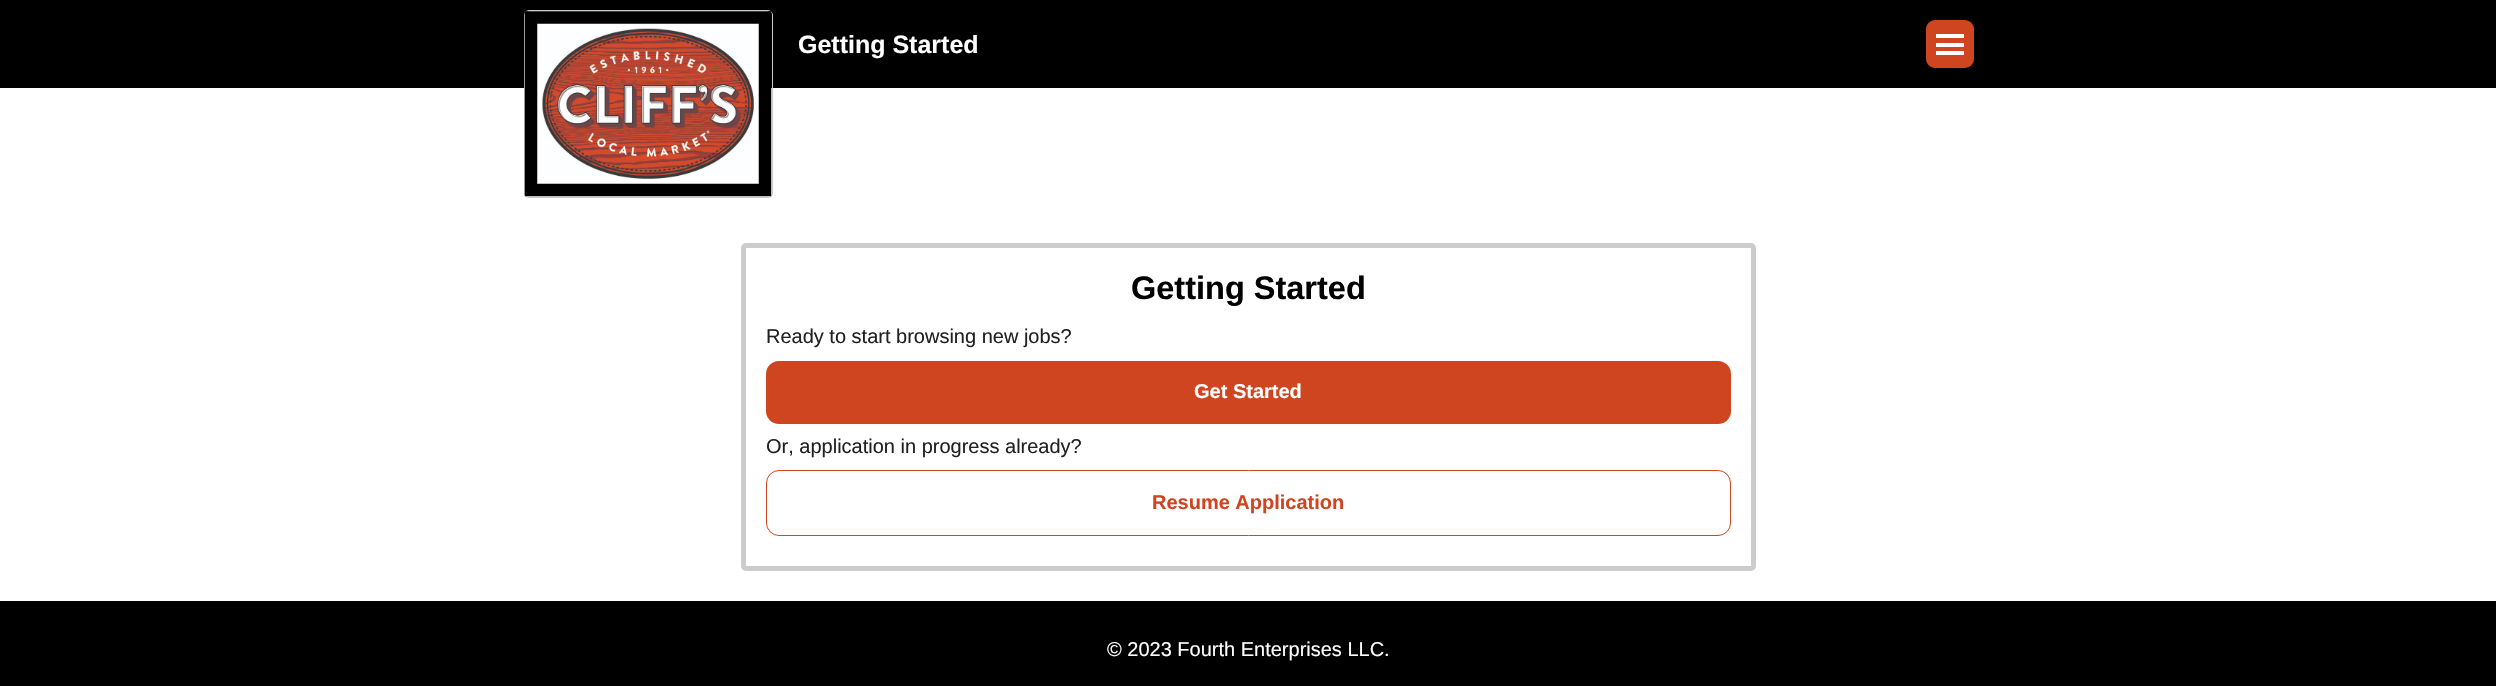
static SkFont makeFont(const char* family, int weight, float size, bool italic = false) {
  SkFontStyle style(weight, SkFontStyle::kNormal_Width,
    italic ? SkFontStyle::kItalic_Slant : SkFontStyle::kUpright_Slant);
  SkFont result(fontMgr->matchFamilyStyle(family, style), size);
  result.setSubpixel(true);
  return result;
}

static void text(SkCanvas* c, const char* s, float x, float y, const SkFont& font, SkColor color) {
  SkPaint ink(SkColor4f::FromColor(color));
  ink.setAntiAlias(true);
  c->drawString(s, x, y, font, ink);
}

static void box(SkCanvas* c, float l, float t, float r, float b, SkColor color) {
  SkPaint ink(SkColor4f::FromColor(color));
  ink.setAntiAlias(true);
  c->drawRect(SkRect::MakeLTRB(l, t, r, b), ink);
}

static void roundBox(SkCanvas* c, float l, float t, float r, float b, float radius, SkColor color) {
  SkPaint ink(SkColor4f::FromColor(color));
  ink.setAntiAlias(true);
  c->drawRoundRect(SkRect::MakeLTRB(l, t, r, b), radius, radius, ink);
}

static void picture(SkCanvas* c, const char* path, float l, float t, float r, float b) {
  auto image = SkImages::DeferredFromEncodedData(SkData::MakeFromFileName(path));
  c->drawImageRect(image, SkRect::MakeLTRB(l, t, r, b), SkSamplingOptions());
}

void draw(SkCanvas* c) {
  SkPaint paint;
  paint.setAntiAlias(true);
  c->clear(0xffffffff);
  box(c, 0, 0, 2496, 88, 0xff000000);
  paint.setStyle(SkPaint::kStroke_Style);
  paint.setStrokeWidth(1);
  paint.setColor(0xffcccccc);
  c->drawRoundRect(SkRect::MakeLTRB(524.5f, 10.5f, 772.5f, 197.5f), 4.5f, 4.5f, paint);
  roundBox(c, 525, 11, 771, 196, 5, 0xffffffff);
  paint.setStrokeWidth(12.5f);
  paint.setColor(0xff000000);
  c->drawPath(SkPathBuilder().moveTo(531, 17.5f).lineTo(765, 17.5f).lineTo(765, 190).lineTo(531, 190).close().detach(), paint);
  picture(c, "img_01.png", 542, 28, 754, 179);
  SkFont face1 = makeFont("Liberation Sans", 700, 25);
  text(c, "Getting Started", 798, 53, face1, 0xffffffff);
  roundBox(c, 1926, 20, 1974, 68, 9, 0xffcf4520);
  box(c, 1936, 34, 1964, 38, 0xffffffff);
  box(c, 1936, 43, 1964, 47, 0xffffffff);
  box(c, 1936, 51, 1964, 55, 0xffffffff);
  paint.setStrokeWidth(5);
  paint.setColor(0xffcccccc);
  c->drawRoundRect(SkRect::MakeLTRB(743.5f, 245.5f, 1753.5f, 568.5f), 2.5f, 2.5f, paint);
  SkFont face2 = makeFont("Liberation Sans", 700, 32.5f);
  text(c, "Getting Started", 1131, 299, face2, 0xff000000);
  SkFont face3 = makeFont("Liberation Sans", 400, 20);
  text(c, "Ready to start browsing new jobs?", 766, 343, face3, 0xff212124);
  roundBox(c, 766, 361, 1731, 424, 13, 0xffcf4520);
  SkFont face4 = makeFont("Liberation Sans", 700, 20);
  text(c, "Get Started", 1194, 398, face4, 0xffffffff);
  text(c, "Or, application in progress already?", 766, 453, face3, 0xff212124);
  paint.setStrokeWidth(1);
  paint.setColor(0xffcf4520);
  c->drawRoundRect(SkRect::MakeLTRB(766.5f, 470.5f, 1730.5f, 535.5f), 12.5f, 12.5f, paint);
  text(c, "Resume Application", 1152, 509, face4, 0xffcf4520);
  box(c, 0, 601, 2496, 686, 0xff000000);
  text(c, "© 2023 Fourth Enterprises LLC.", 1107, 656, face3, 0xffffffff);
}
